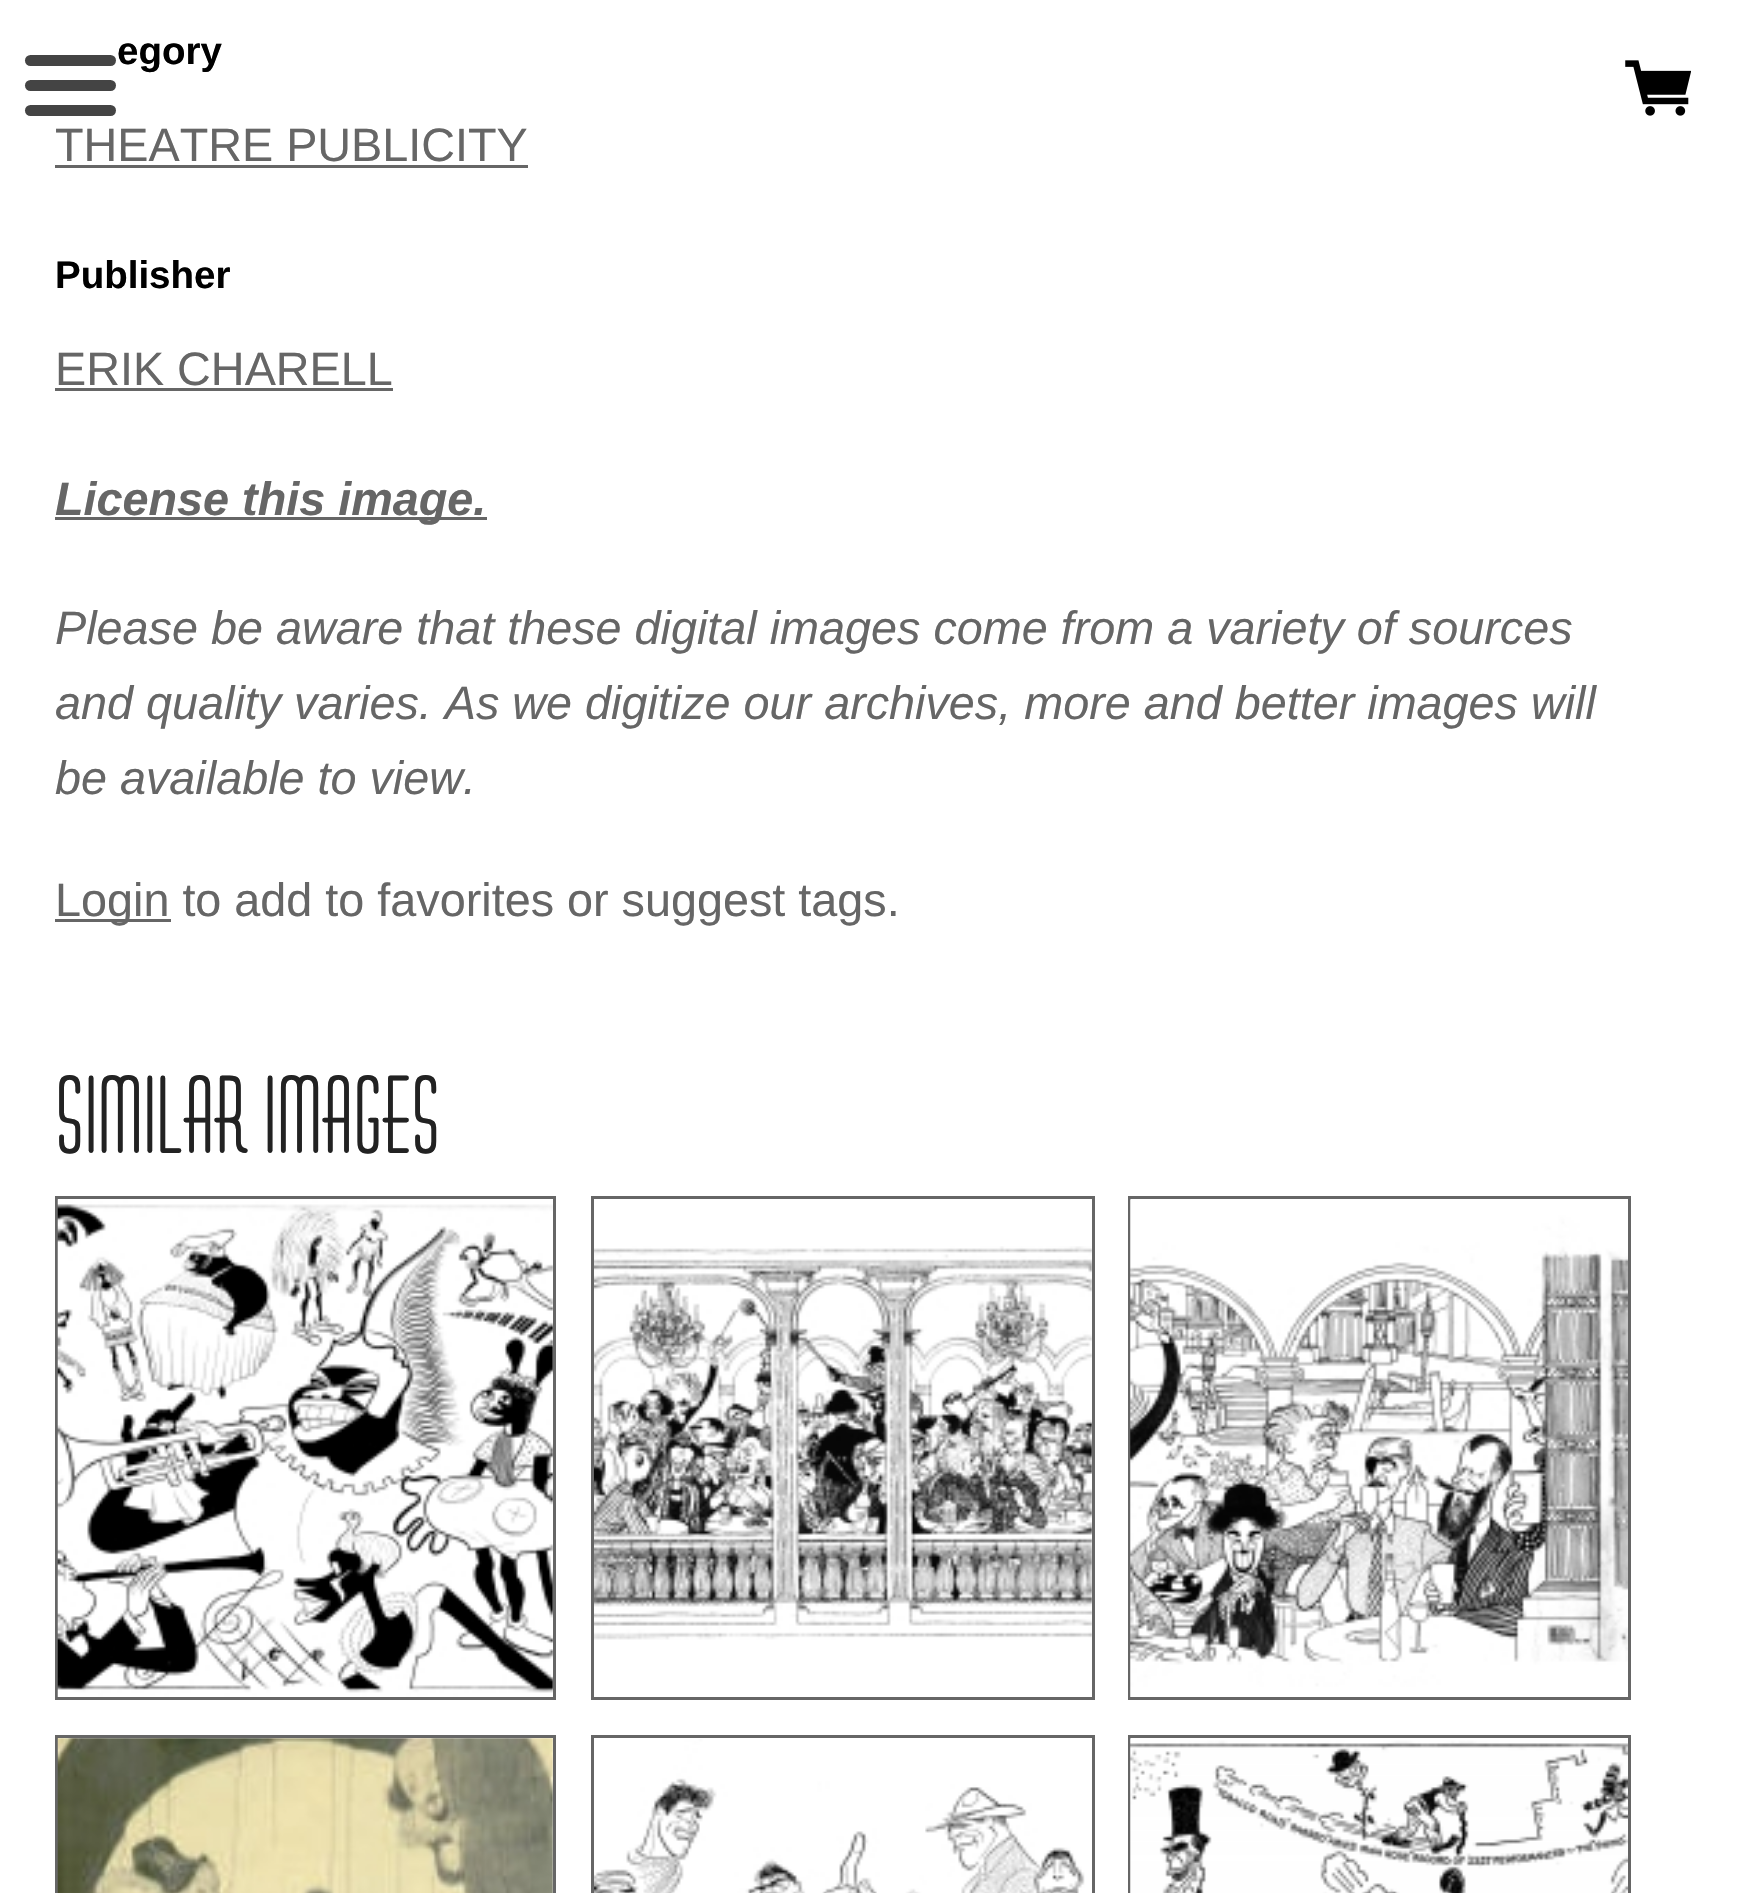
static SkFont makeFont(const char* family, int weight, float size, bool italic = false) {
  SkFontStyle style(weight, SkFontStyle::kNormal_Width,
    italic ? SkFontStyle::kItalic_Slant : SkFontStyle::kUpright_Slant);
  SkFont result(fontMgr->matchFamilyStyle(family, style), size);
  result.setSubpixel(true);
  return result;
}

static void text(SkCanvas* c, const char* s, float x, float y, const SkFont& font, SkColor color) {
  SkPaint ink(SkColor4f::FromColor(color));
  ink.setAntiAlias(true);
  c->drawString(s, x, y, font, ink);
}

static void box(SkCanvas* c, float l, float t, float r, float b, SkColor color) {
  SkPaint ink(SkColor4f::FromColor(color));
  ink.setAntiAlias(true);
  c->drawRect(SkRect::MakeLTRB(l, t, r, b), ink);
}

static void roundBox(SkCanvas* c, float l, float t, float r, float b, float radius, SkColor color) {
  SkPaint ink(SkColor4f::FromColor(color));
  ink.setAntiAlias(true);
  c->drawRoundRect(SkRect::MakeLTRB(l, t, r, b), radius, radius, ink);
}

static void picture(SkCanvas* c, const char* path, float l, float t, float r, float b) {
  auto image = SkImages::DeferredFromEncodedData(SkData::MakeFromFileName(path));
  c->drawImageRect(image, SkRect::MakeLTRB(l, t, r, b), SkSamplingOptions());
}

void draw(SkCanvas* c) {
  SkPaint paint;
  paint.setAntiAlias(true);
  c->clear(0xffffffff);
  SkFont face1 = makeFont("Liberation Sans", 700, 38.5f);
  text(c, "egory", 117, 64, face1, 0xff000000);
  SkFont face2 = makeFont("Liberation Sans", 400, 46.75f);
  text(c, "THEATRE PUBLICITY", 55, 161, face2, 0xff666666);
  box(c, 55, 165, 528, 168, 0xff666666);
  text(c, "Publisher", 55, 288, face1, 0xff000000);
  text(c, "ERIK CHARELL", 55, 385, face2, 0xff666666);
  box(c, 55, 388, 393, 391, 0xff666666);
  box(c, 55, 517, 487, 520, 0xff666666);
  SkFont face3 = makeFont("Liberation Sans", 700, 46.75f, true);
  text(c, "License this image.", 55, 515, face3, 0xff666666);
  SkFont face4 = makeFont("Liberation Sans", 400, 46.75f, true);
  text(c, "Please be aware that these digital images come from a variety of sources", 55, 644, face4, 0xff666666);
  text(c, "and quality varies. As we digitize our archives, more and better images will", 55, 719, face4, 0xff666666);
  text(c, "be available to view.", 55, 794, face4, 0xff666666);
  box(c, 55, 919, 171, 922, 0xff666666);
  text(c, "Login to add to favorites or suggest tags.", 55, 916, face2, 0xff666666);
  SkFont face5 = makeFont("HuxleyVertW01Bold", 700, 107.5f);
  text(c, "SIMILAR IMAGES", 55, 1153, face5, 0xff222222);
  paint.setStyle(SkPaint::kStroke_Style);
  paint.setStrokeWidth(3);
  paint.setColor(0xff666666);
  c->drawRect(SkRect::MakeLTRB(56.5f, 1197.5f, 554.5f, 1698.5f), paint);
  picture(c, "img_01.png", 57, 1199, 553, 1697);
  c->drawRect(SkRect::MakeLTRB(592.5f, 1197.5f, 1093.5f, 1698.5f), paint);
  picture(c, "img_02.png", 594, 1246, 1092, 1640);
  c->drawRect(SkRect::MakeLTRB(1129.5f, 1197.5f, 1629.5f, 1698.5f), paint);
  picture(c, "img_03.png", 1130, 1199, 1628, 1697);
  c->drawRect(SkRect::MakeLTRB(56.5f, 1736.5f, 554.5f, 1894.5f), paint);
  picture(c, "img_04.png", 57, 1738, 553, 1893);
  c->drawRect(SkRect::MakeLTRB(592.5f, 1736.5f, 1093.5f, 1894.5f), paint);
  picture(c, "img_05.png", 594, 1739, 1085, 1893);
  c->drawRect(SkRect::MakeLTRB(1129.5f, 1736.5f, 1629.5f, 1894.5f), paint);
  picture(c, "img_06.png", 1130, 1738, 1628, 1893);
  roundBox(c, 25, 55, 116, 66, 5.5f, 0xff444444);
  roundBox(c, 25, 80, 116, 91, 5.5f, 0xff444444);
  roundBox(c, 25, 105, 116, 116, 5.5f, 0xff444444);
  picture(c, "img_07.png", 1625, 60, 1691, 116);
}
